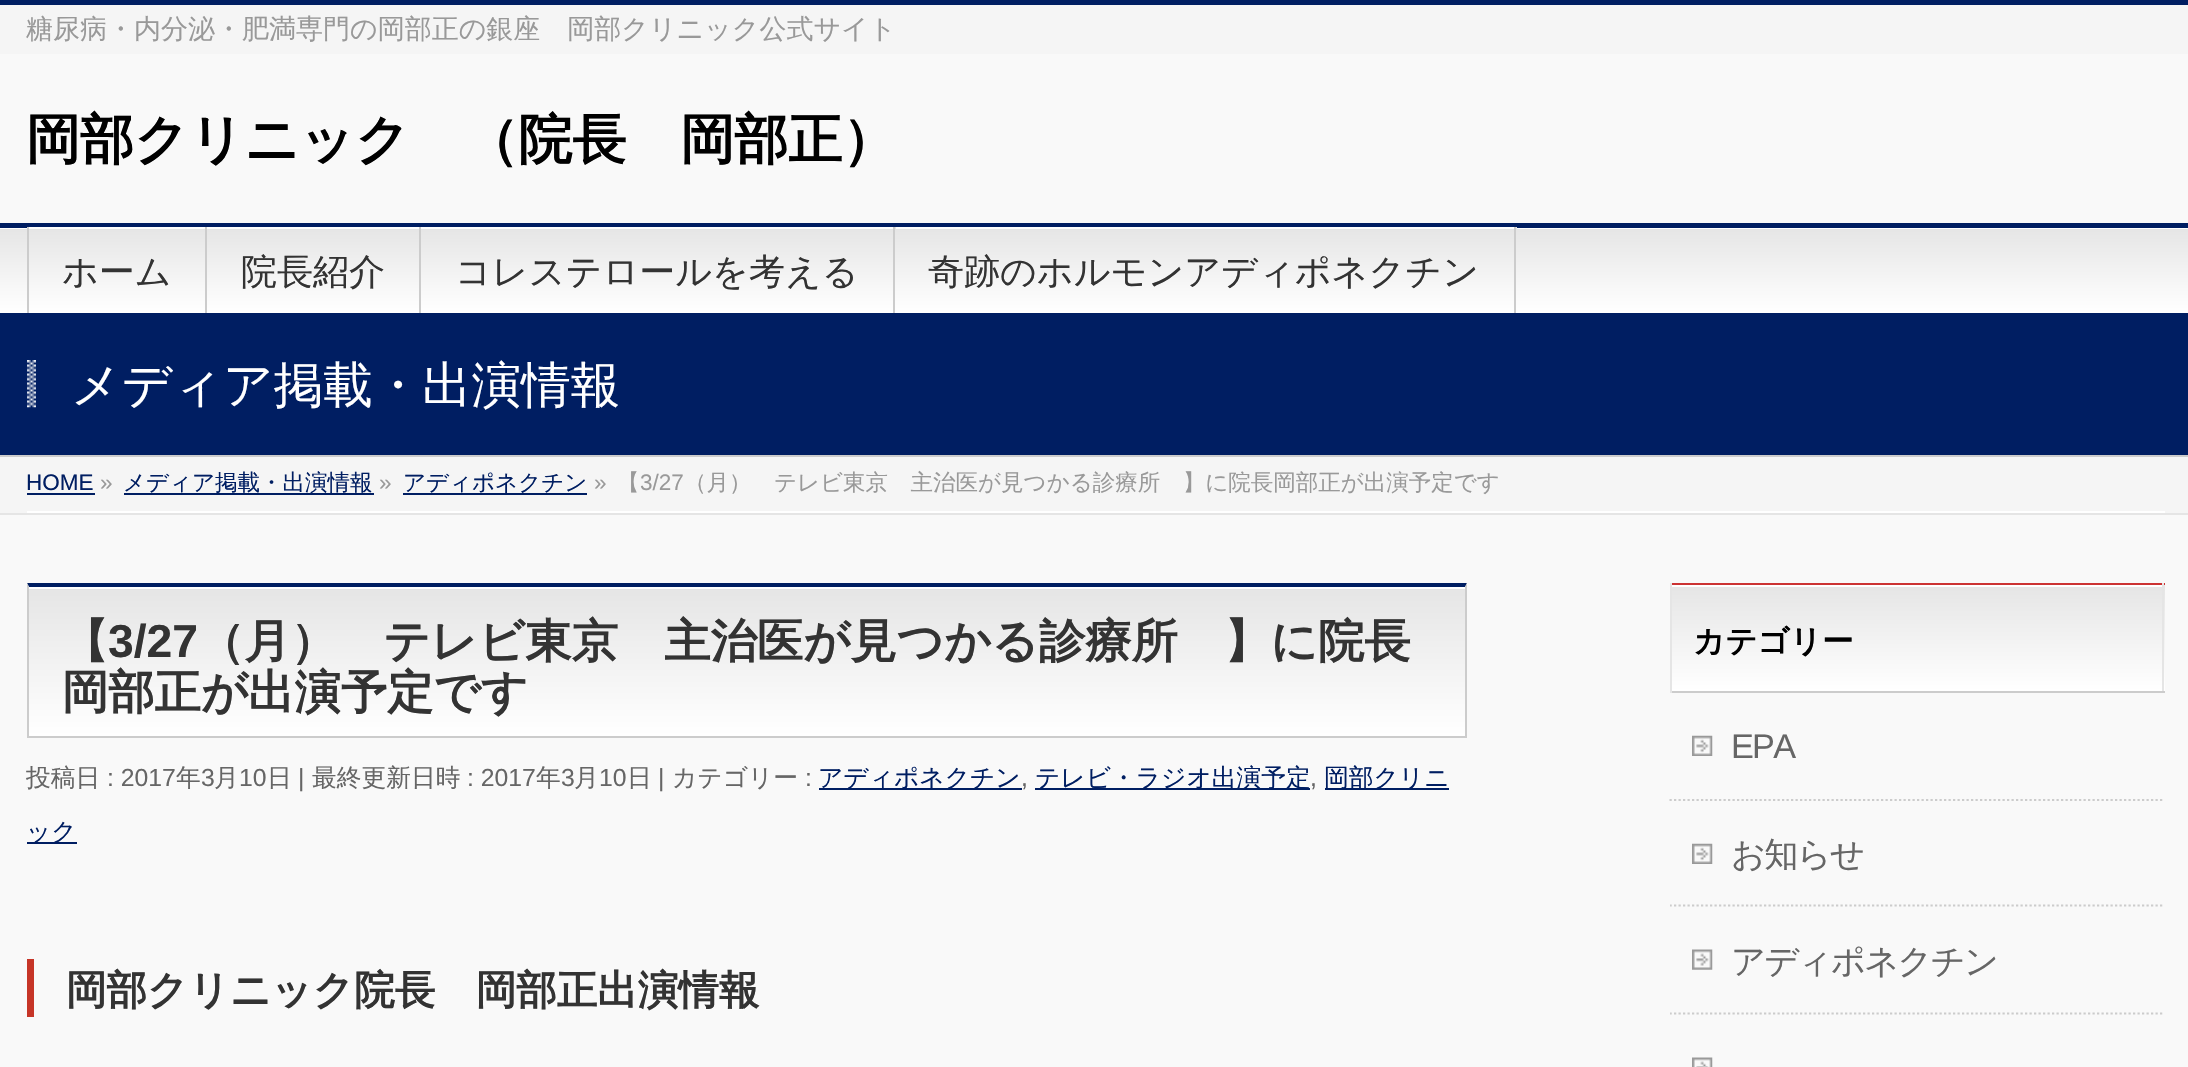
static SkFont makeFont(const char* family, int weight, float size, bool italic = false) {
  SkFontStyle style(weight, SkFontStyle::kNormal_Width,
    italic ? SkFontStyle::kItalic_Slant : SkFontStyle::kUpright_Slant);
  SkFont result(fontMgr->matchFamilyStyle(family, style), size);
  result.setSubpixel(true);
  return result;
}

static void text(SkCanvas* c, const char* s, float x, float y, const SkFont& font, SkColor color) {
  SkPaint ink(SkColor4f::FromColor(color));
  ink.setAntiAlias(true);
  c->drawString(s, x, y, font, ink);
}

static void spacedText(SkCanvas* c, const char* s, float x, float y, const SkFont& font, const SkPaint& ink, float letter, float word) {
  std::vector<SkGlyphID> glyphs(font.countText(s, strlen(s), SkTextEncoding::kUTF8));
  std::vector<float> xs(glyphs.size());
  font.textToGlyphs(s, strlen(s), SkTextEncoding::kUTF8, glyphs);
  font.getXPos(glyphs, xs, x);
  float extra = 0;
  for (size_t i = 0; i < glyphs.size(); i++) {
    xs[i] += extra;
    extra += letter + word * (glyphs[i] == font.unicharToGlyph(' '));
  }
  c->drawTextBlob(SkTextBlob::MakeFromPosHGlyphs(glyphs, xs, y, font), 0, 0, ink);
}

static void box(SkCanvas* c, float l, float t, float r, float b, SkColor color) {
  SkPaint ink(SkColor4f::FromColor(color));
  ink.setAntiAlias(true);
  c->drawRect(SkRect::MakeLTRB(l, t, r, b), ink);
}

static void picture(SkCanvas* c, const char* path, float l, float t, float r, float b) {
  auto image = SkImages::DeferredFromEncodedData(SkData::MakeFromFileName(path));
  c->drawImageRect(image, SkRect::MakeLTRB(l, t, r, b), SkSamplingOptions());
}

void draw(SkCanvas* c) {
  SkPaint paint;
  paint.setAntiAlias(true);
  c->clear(0xfff9f9f9);
  box(c, 0, 5, 2188, 54, 0xfff5f5f5);
  box(c, 0, 0, 2188, 5, 0xff001e62);
  SkFont face1 = makeFont("WenQuanYi Zen Hei", 500, 27);
  text(c, "糖尿病・内分泌・肥満専門の岡部正の銀座　岡部クリニック公式サイト", 26, 38, face1, 0xff999999);
  SkFont face2 = makeFont("WenQuanYi Zen Hei", 700, 54);
  text(c, "岡部クリニック　（院長　岡部正）", 26, 158, face2, 0xff000000);
  {
    const SkColor colors[] = {0xffe5e5e5, 0xffffffff};
    const float stops[] = {0, 1};
    const SkPoint ends[] = {{1095, 227}, {1095, 313}};
    paint.setShader(SkGradientShader::MakeLinear(ends, colors, stops, 2, SkTileMode::kClamp));
    paint.setAlpha(255);
  }
  c->drawRect(SkRect::MakeLTRB(0, 229, 2188, 313), paint);
  box(c, 0, 228, 2188, 229, 0xffffffff);
  box(c, 0, 223, 2188, 228, 0xff001e62);
  box(c, 27, 227, 29, 313, 0xffcccccc);
  box(c, 29, 227, 205, 228, 0xffffffff);
  box(c, 205, 227, 207, 313, 0xffcccccc);
  SkFont face3 = makeFont("WenQuanYi Zen Hei", 500, 36);
  text(c, "ホーム", 62, 284, face3, 0xff333333);
  box(c, 207, 227, 419, 228, 0xffffffff);
  box(c, 419, 227, 421, 313, 0xffcccccc);
  text(c, "院長紹介", 241, 284, face3, 0xff333333);
  {
    const SkColor colors[] = {0xffe5e5e5, 0xffffffff};
    const float stops[] = {0, 1};
    const SkPoint ends[] = {{421, 227}, {421, 313}};
    paint.setShader(SkGradientShader::MakeLinear(ends, colors, stops, 2, SkTileMode::kClamp));
    paint.setAlpha(255);
  }
  c->drawRect(SkRect::MakeLTRB(421, 227, 896, 229), paint);
  box(c, 421, 227, 893, 229, 0xffffffff);
  box(c, 893, 227, 895, 313, 0xffcccccc);
  text(c, "コレステロールを考える", 455, 284, face3, 0xff333333);
  {
    const SkColor colors[] = {0xffe5e5e5, 0xffffffff};
    const float stops[] = {0, 1};
    const SkPoint ends[] = {{896, 227}, {896, 313}};
    paint.setShader(SkGradientShader::MakeLinear(ends, colors, stops, 2, SkTileMode::kClamp));
    paint.setAlpha(255);
  }
  c->drawRect(SkRect::MakeLTRB(896, 227, 1517, 229), paint);
  box(c, 896, 227, 1514, 229, 0xffffffff);
  box(c, 1514, 227, 1516, 313, 0xffcccccc);
  text(c, "奇跡のホルモンアディポネクチン", 928, 284, face3, 0xff333333);
  box(c, 0, 313, 2188, 455, 0xff001e62);
  box(c, 0, 455, 2188, 457, 0xffcccccc);
  picture(c, "img_01.png", 27, 360, 36, 408);
  SkFont face4 = makeFont("WenQuanYi Zen Hei", 500, 49.5f);
  text(c, "メディア掲載・出演情報", 71, 402, face4, 0xffffffff);
  box(c, 0, 457, 2188, 513, 0xfff5f5f5);
  box(c, 0, 513, 2188, 515, 0xffe5e5e5);
  box(c, 27, 511, 2165, 513, 0xffffffff);
  SkFont face5 = makeFont("Liberation Sans", 400, 22.5f);
  text(c, "HOME", 26, 490, face5, 0xff001e62);
  box(c, 27, 493, 95, 495, 0xff001e62);
  text(c, "»", 100, 490, face5, 0xff999999);
  box(c, 124, 493, 374, 495, 0xff001e62);
  SkFont face6 = makeFont("WenQuanYi Zen Hei", 500, 22.5f);
  text(c, "メディア掲載・出演情報", 123, 490, face6, 0xff001e62);
  text(c, "»", 379, 490, face5, 0xff999999);
  text(c, "アディポネクチン", 403, 490, face6, 0xff001e62);
  box(c, 403, 493, 587, 495, 0xff001e62);
  text(c, "»", 594, 490, face5, 0xff999999);
  text(c, "【", 617, 490, face6, 0xff999999);
  text(c, "3/27", 640, 490, face5, 0xff999999);
  text(c, "（月）　テレビ東京　主治医が見つかる診療所　】に院長岡部正が出演予定です", 684, 490, face6, 0xff999999);
  {
    const SkColor colors[] = {0xffe5e5e5, 0xffffffff};
    const float stops[] = {0, 1};
    const SkPoint ends[] = {{29, 587}, {29, 736}};
    paint.setShader(SkGradientShader::MakeLinear(ends, colors, stops, 2, SkTileMode::kClamp));
    paint.setAlpha(255);
  }
  c->drawRect(SkRect::MakeLTRB(29, 589, 1465, 736), paint);
  box(c, 29, 587, 1465, 589, 0xffffffff);
  paint.setShader(nullptr);
  paint.setColor(0xff001e62);
  c->drawPath(SkPathBuilder().moveTo(27, 583).lineTo(1467, 583).lineTo(1465, 587).lineTo(29, 587).close().detach(), paint);
  paint.setColor(0xffcccccc);
  c->drawPath(SkPathBuilder().moveTo(1467, 583).lineTo(1467, 738).lineTo(1465, 736).lineTo(1465, 587).close().detach(), paint);
  box(c, 27, 736, 1467, 738, 0xffcccccc);
  c->drawPath(SkPathBuilder().moveTo(27, 738).lineTo(27, 583).lineTo(29, 587).lineTo(29, 736).close().detach(), paint);
  SkFont face7 = makeFont("WenQuanYi Zen Hei", 700, 46.3f);
  text(c, "【", 62, 657, face7, 0xff333333);
  SkFont face8 = makeFont("Liberation Sans", 700, 46.3f);
  text(c, "3/27", 108, 657, face8, 0xff333333);
  text(c, "（月）　テレビ東京　主治医が見つかる診療所　】に院長", 198, 657, face7, 0xff333333);
  text(c, "岡部正が出演予定です", 62, 708, face7, 0xff333333);
  SkFont face9 = makeFont("WenQuanYi Zen Hei", 500, 24.75f);
  text(c, "投稿日", 26, 786, face9, 0xff666666);
  SkFont face10 = makeFont("Liberation Sans", 400, 24.75f);
  text(c, ": 2017", 107, 786, face10, 0xff666666);
  text(c, "年", 176, 786, face9, 0xff666666);
  text(c, "3", 201, 786, face10, 0xff666666);
  text(c, "月", 214, 786, face9, 0xff666666);
  text(c, "10", 239, 786, face10, 0xff666666);
  text(c, "日", 267, 786, face9, 0xff666666);
  text(c, "|", 298, 786, face10, 0xff666666);
  text(c, "最終更新日時", 312, 786, face9, 0xff666666);
  text(c, ": 2017", 467, 786, face10, 0xff666666);
  text(c, "年", 536, 786, face9, 0xff666666);
  text(c, "3", 561, 786, face10, 0xff666666);
  text(c, "月", 574, 786, face9, 0xff666666);
  text(c, "10", 599, 786, face10, 0xff666666);
  text(c, "日", 627, 786, face9, 0xff666666);
  text(c, "|", 658, 786, face10, 0xff666666);
  text(c, "カテゴリー", 672, 786, face9, 0xff666666);
  text(c, ":", 805, 786, face10, 0xff666666);
  box(c, 819, 788, 1022, 790, 0xff001e62);
  text(c, "アディポネクチン", 818, 786, face9, 0xff001e62);
  text(c, ",", 1021, 786, face10, 0xff666666);
  box(c, 1035, 788, 1310, 790, 0xff001e62);
  text(c, "テレビ・ラジオ出演予定", 1035, 786, face9, 0xff001e62);
  text(c, ",", 1310, 786, face10, 0xff666666);
  box(c, 1325, 788, 1449, 790, 0xff001e62);
  text(c, "岡部クリニ", 1324, 786, face9, 0xff001e62);
  box(c, 27, 842, 77, 844, 0xff001e62);
  text(c, "ック", 26, 840, face9, 0xff001e62);
  box(c, 27, 959, 34, 1017, 0xffc63527);
  SkFont face11 = makeFont("WenQuanYi Zen Hei", 700, 40.5f);
  text(c, "岡部クリニック院長　岡部正出演情報", 66, 1004, face11, 0xff333333);
  {
    const SkColor colors[] = {0xffe5e5e5, 0xffffffff};
    const float stops[] = {0, 1};
    const SkPoint ends[] = {{1672, 585}, {1672, 691}};
    paint.setShader(SkGradientShader::MakeLinear(ends, colors, stops, 2, SkTileMode::kClamp));
    paint.setAlpha(255);
  }
  c->drawRect(SkRect::MakeLTRB(1672, 585, 2165, 691), paint);
  box(c, 1672, 585, 2162, 587, 0xffffffff);
  box(c, 1670, 583, 2165, 585, 0xffcc3333);
  box(c, 2162, 583, 2164, 693, 0xffe5e5e5);
  box(c, 1670, 691, 2165, 693, 0xffcccccc);
  box(c, 1670, 583, 1672, 693, 0xffe5e5e5);
  SkFont face12 = makeFont("WenQuanYi Zen Hei", 700, 31.5f);
  text(c, "カテゴリー", 1693, 652, face12, 0xff000000);
  paint.setStyle(SkPaint::kStroke_Style);
  paint.setStrokeWidth(2.2f);
  paint.setShader(nullptr);
  paint.setColor(0xffcccccc);
  paint.setPathEffect(SkDashPathEffect::Make({{2.25f, 2.25f}}, 0));
  c->drawPath(SkPathBuilder().moveTo(1669.5f, 800).lineTo(2164.5f, 800).detach(), paint);
  paint.setPathEffect(nullptr);
  picture(c, "img_02.png", 1692, 735, 1713, 756);
  SkFont face13 = makeFont("Liberation Sans", 400, 34.25f);
  paint.setStyle(SkPaint::kFill_Style);
  paint.setColor(0xff666666);
  spacedText(c, "EPA", 1731, 758, face13, paint, -1.75f, 0);
  c->save();
  c->clipRect(SkRect::MakeLTRB(1670, 583, 2165, 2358));
  paint.setStyle(SkPaint::kStroke_Style);
  paint.setColor(0xffcccccc);
  paint.setPathEffect(SkDashPathEffect::Make({{2.25f, 2.25f}}, 0));
  c->drawPath(SkPathBuilder().moveTo(1669.5f, 905.5f).lineTo(2164.5f, 905.5f).detach(), paint);
  paint.setPathEffect(nullptr);
  c->restore();
  picture(c, "img_02.png", 1692, 843, 1713, 864);
  SkFont face14 = makeFont("WenQuanYi Zen Hei", 500, 34.25f);
  paint.setStyle(SkPaint::kFill_Style);
  paint.setColor(0xff666666);
  spacedText(c, "お知らせ", 1731, 866, face14, paint, -1.75f, 0);
  c->save();
  c->clipRect(SkRect::MakeLTRB(1670, 583, 2165, 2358));
  paint.setStyle(SkPaint::kStroke_Style);
  paint.setColor(0xffcccccc);
  paint.setPathEffect(SkDashPathEffect::Make({{2.25f, 2.25f}}, 0));
  c->drawPath(SkPathBuilder().moveTo(1669.5f, 1013.5f).lineTo(2164.5f, 1013.5f).detach(), paint);
  paint.setPathEffect(nullptr);
  c->restore();
  picture(c, "img_03.png", 1692, 949, 1713, 970);
  paint.setStyle(SkPaint::kFill_Style);
  paint.setColor(0xff666666);
  spacedText(c, "アディポネクチン", 1731, 973, face14, paint, -1.75f, 0);
  picture(c, "img_04.png", 1692, 1057, 1713, 1067);
}
